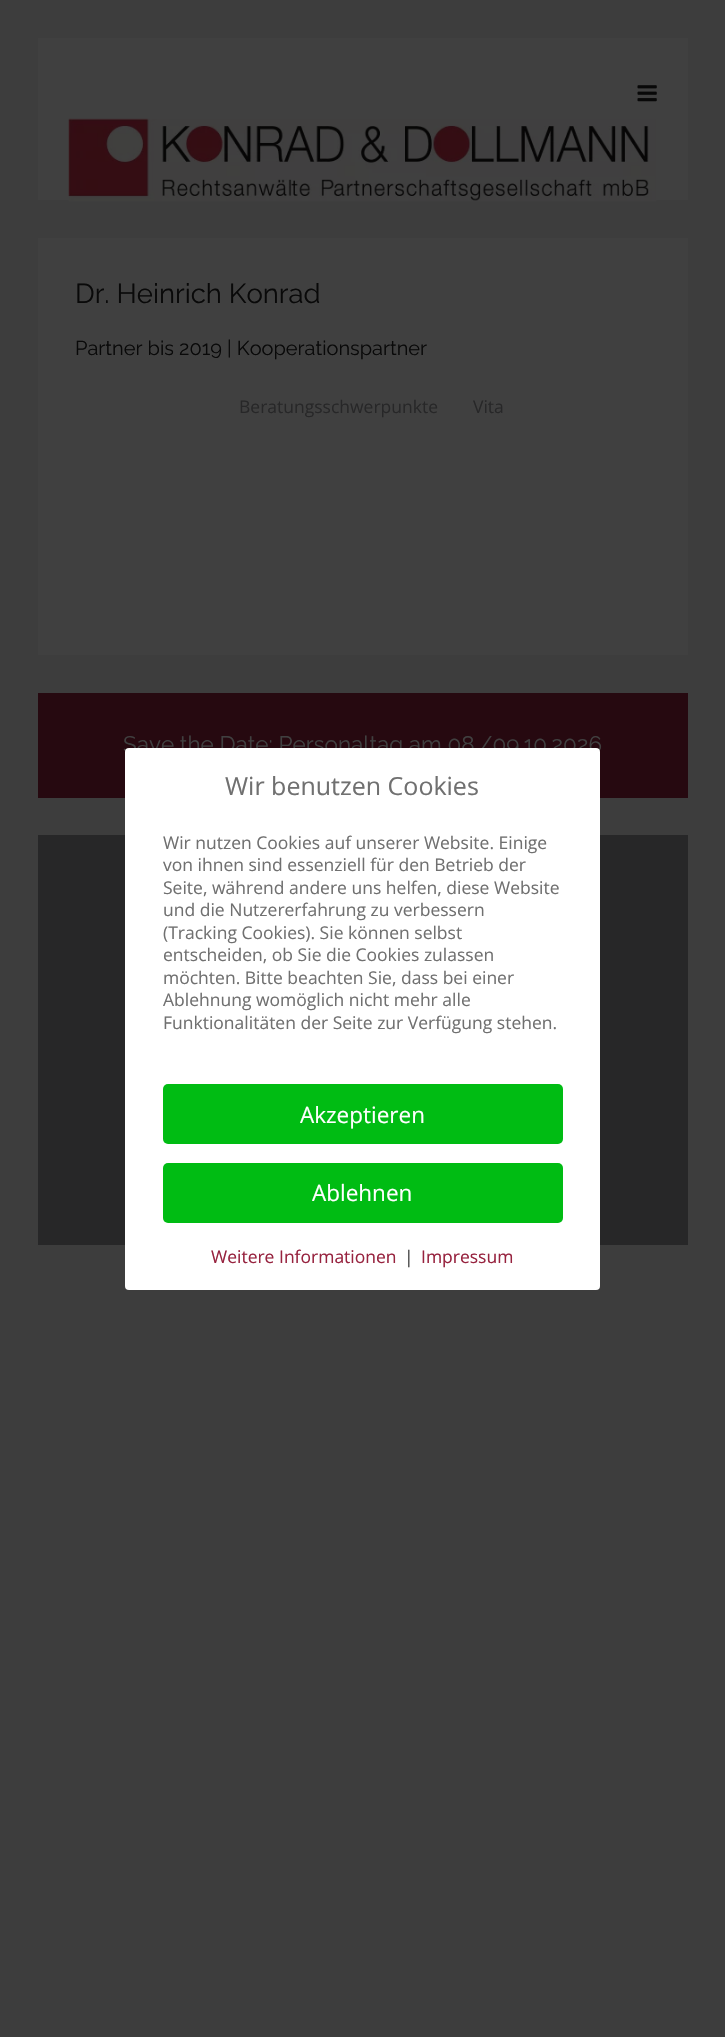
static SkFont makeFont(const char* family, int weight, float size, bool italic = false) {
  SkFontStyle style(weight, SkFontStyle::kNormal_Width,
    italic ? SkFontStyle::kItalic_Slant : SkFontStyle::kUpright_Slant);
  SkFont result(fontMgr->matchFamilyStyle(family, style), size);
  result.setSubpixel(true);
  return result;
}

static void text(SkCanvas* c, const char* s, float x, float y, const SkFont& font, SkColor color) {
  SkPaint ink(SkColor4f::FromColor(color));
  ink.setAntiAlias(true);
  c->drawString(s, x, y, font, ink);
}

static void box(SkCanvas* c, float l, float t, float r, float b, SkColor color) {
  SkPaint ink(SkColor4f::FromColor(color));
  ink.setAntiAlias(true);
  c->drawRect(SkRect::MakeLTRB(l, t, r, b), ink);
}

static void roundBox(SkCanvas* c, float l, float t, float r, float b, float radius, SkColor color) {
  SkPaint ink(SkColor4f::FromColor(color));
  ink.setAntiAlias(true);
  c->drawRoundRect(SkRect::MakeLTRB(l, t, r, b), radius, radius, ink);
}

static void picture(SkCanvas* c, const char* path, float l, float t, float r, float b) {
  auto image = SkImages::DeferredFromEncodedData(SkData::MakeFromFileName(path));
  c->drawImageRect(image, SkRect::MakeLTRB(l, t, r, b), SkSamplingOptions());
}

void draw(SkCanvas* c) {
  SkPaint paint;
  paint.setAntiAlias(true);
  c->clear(0xff3d3d3d);
  box(c, 38, 38, 688, 200, 0xff404040);
  picture(c, "img_01.png", 637, 85, 657, 102);
  picture(c, "img_02.png", 68, 118, 657, 202);
  box(c, 38, 238, 688, 655, 0xff404040);
  SkFont face1 = makeFont("Raleway", 400, 27.5f);
  text(c, "Dr. Heinrich Konrad", 75, 303, face1, 0xff090909);
  SkFont face2 = makeFont("Raleway", 400, 20);
  text(c, "Partner bis 2019 | Kooperationspartner", 75, 355, face2, 0xff090909);
  SkFont face3 = makeFont("Open Sans", 400, 17.5f);
  text(c, "Beratungsschwerpunkte", 239, 413, face3, 0xff272728);
  text(c, "Vita", 473, 413, face3, 0xff272728);
  box(c, 38, 693, 688, 798, 0xff260910);
  SkFont face4 = makeFont("Raleway", 400, 22.5f);
  text(c, "Save the Date: Personaltag am 08./09.10.2026", 123, 752, face4, 0xff404040);
  box(c, 38, 835, 688, 1245, 0xff272728);
  roundBox(c, 125, 748, 600, 1290, 4, 0xffffffff);
  SkFont face5 = makeFont("Open Sans", 400, 25);
  text(c, "Wir benutzen Cookies", 225, 795, face5, 0xff707070);
  text(c, "Wir nutzen Cookies auf unserer Website. Einige", 163, 849, face3, 0xff707070);
  text(c, "von ihnen sind essenziell für den Betrieb der", 163, 871, face3, 0xff707070);
  text(c, "Seite, während andere uns helfen, diese Website", 163, 894, face3, 0xff707070);
  text(c, "und die Nutzererfahrung zu verbessern", 163, 916, face3, 0xff707070);
  text(c, "(Tracking Cookies). Sie können selbst", 163, 939, face3, 0xff707070);
  text(c, "entscheiden, ob Sie die Cookies zulassen", 163, 961, face3, 0xff707070);
  text(c, "möchten. Bitte beachten Sie, dass bei einer", 163, 984, face3, 0xff707070);
  text(c, "Ablehnung womöglich nicht mehr alle", 163, 1006, face3, 0xff707070);
  text(c, "Funktionalitäten der Seite zur Verfügung stehen.", 163, 1029, face3, 0xff707070);
  roundBox(c, 163, 1084, 563, 1144, 5, 0xff00bc13);
  SkFont face6 = makeFont("Open Sans", 400, 22.5f);
  text(c, "Akzeptieren", 300, 1123, face6, 0xffffffff);
  roundBox(c, 163, 1163, 563, 1223, 5, 0xff00bc13);
  text(c, "Ablehnen", 312, 1201, face6, 0xffffffff);
  text(c, "Weitere Informationen", 211, 1263, face3, 0xff97233f);
  text(c, "|", 404, 1263, face3, 0xff404040);
  text(c, "Impressum", 421, 1263, face3, 0xff97233f);
}
